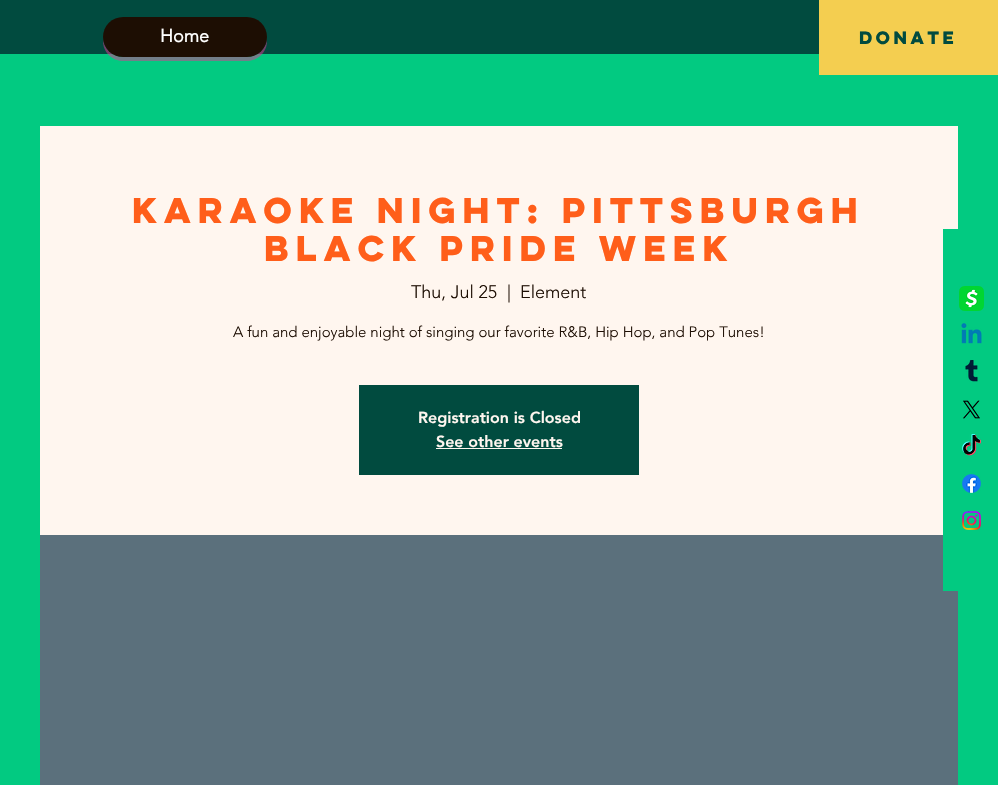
static SkFont makeFont(const char* family, int weight, float size, bool italic = false) {
  SkFontStyle style(weight, SkFontStyle::kNormal_Width,
    italic ? SkFontStyle::kItalic_Slant : SkFontStyle::kUpright_Slant);
  SkFont result(fontMgr->matchFamilyStyle(family, style), size);
  result.setSubpixel(true);
  return result;
}

static void text(SkCanvas* c, const char* s, float x, float y, const SkFont& font, SkColor color) {
  SkPaint ink(SkColor4f::FromColor(color));
  ink.setAntiAlias(true);
  c->drawString(s, x, y, font, ink);
}

static void box(SkCanvas* c, float l, float t, float r, float b, SkColor color) {
  SkPaint ink(SkColor4f::FromColor(color));
  ink.setAntiAlias(true);
  c->drawRect(SkRect::MakeLTRB(l, t, r, b), ink);
}

static void roundBox(SkCanvas* c, float l, float t, float r, float b, float radius, SkColor color) {
  SkPaint ink(SkColor4f::FromColor(color));
  ink.setAntiAlias(true);
  c->drawRoundRect(SkRect::MakeLTRB(l, t, r, b), radius, radius, ink);
}

static void picture(SkCanvas* c, const char* path, float l, float t, float r, float b) {
  auto image = SkImages::DeferredFromEncodedData(SkData::MakeFromFileName(path));
  c->drawImageRect(image, SkRect::MakeLTRB(l, t, r, b), SkSamplingOptions());
}

void draw(SkCanvas* c) {
  SkPaint paint;
  paint.setAntiAlias(true);
  c->clear(0xff02ca81);
  box(c, 0, 0, 819, 54, 0xff014b3f);
  paint.setColor(0x80e43292);
  c->drawPath(SkPathBuilder().moveTo(103, 39).lineTo(103, 41).cubicTo(103, 52, 112, 61, 123, 61).lineTo(247, 61).cubicTo(258, 61, 267, 52, 267, 41).lineTo(267, 39).cubicTo(266, 49, 257, 57, 247, 57).lineTo(123, 57).cubicTo(113, 57, 104, 49, 103, 39).close().detach(), paint);
  roundBox(c, 103, 17, 267, 57, 20, 0xff1d0e03);
  SkFont face1 = makeFont("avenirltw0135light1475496", 700, 18);
  text(c, "Home", 160, 42, face1, 0xffffffff);
  box(c, 819, 0, 998, 75, 0xfff4ce50);
  SkFont face2 = makeFont("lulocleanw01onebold", 700, 16);
  text(c, "DONATE", 859, 44, face2, 0xff014b3f);
  box(c, 40, 126, 958, 535, 0xfffff6ef);
  box(c, 40, 535, 958, 785, 0xff5b707c);
  box(c, 943, 229, 958, 591, 0xff02ca81);
  picture(c, "img_01.png", 959, 286, 984, 311);
  picture(c, "img_02.png", 961, 323, 982, 344);
  picture(c, "img_03.png", 965, 360, 978, 382);
  picture(c, "img_04.png", 963, 400, 980, 419);
  picture(c, "img_05.png", 962, 434, 981, 456);
  picture(c, "img_06.png", 962, 474, 981, 493);
  picture(c, "img_07.png", 962, 511, 981, 530);
  SkFont face3 = makeFont("lulocleanw01onebold", 700, 32);
  text(c, "Karaoke Night: Pittsburgh", 132, 223, face3, 0xffff5e1a);
  text(c, "Black Pride Week", 264, 261, face3, 0xffff5e1a);
  SkFont face4 = makeFont("avenirltw0135light1475496", 300, 18);
  text(c, "Thu, Jul 25", 411, 298, face4, 0xff1d0e03);
  text(c, "|", 507, 298, face4, 0xff1d0e03);
  text(c, "Element", 520, 298, face4, 0xff1d0e03);
  SkFont face5 = makeFont("avenirltw0135light1475496", 300, 15);
  text(c, "A fun and enjoyable night of singing our favorite R&B, Hip Hop, and Pop Tunes!", 233, 337, face5, 0xff1d0e03);
  box(c, 359, 385, 639, 475, 0xff014b3f);
  SkFont face6 = makeFont("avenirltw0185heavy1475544", 900, 16);
  text(c, "Registration is Closed", 418, 423, face6, 0xfffff6ef);
  text(c, "See other events", 436, 447, face6, 0xfffff6ef);
  box(c, 436, 448, 562, 449, 0xfffff6ef);
}
